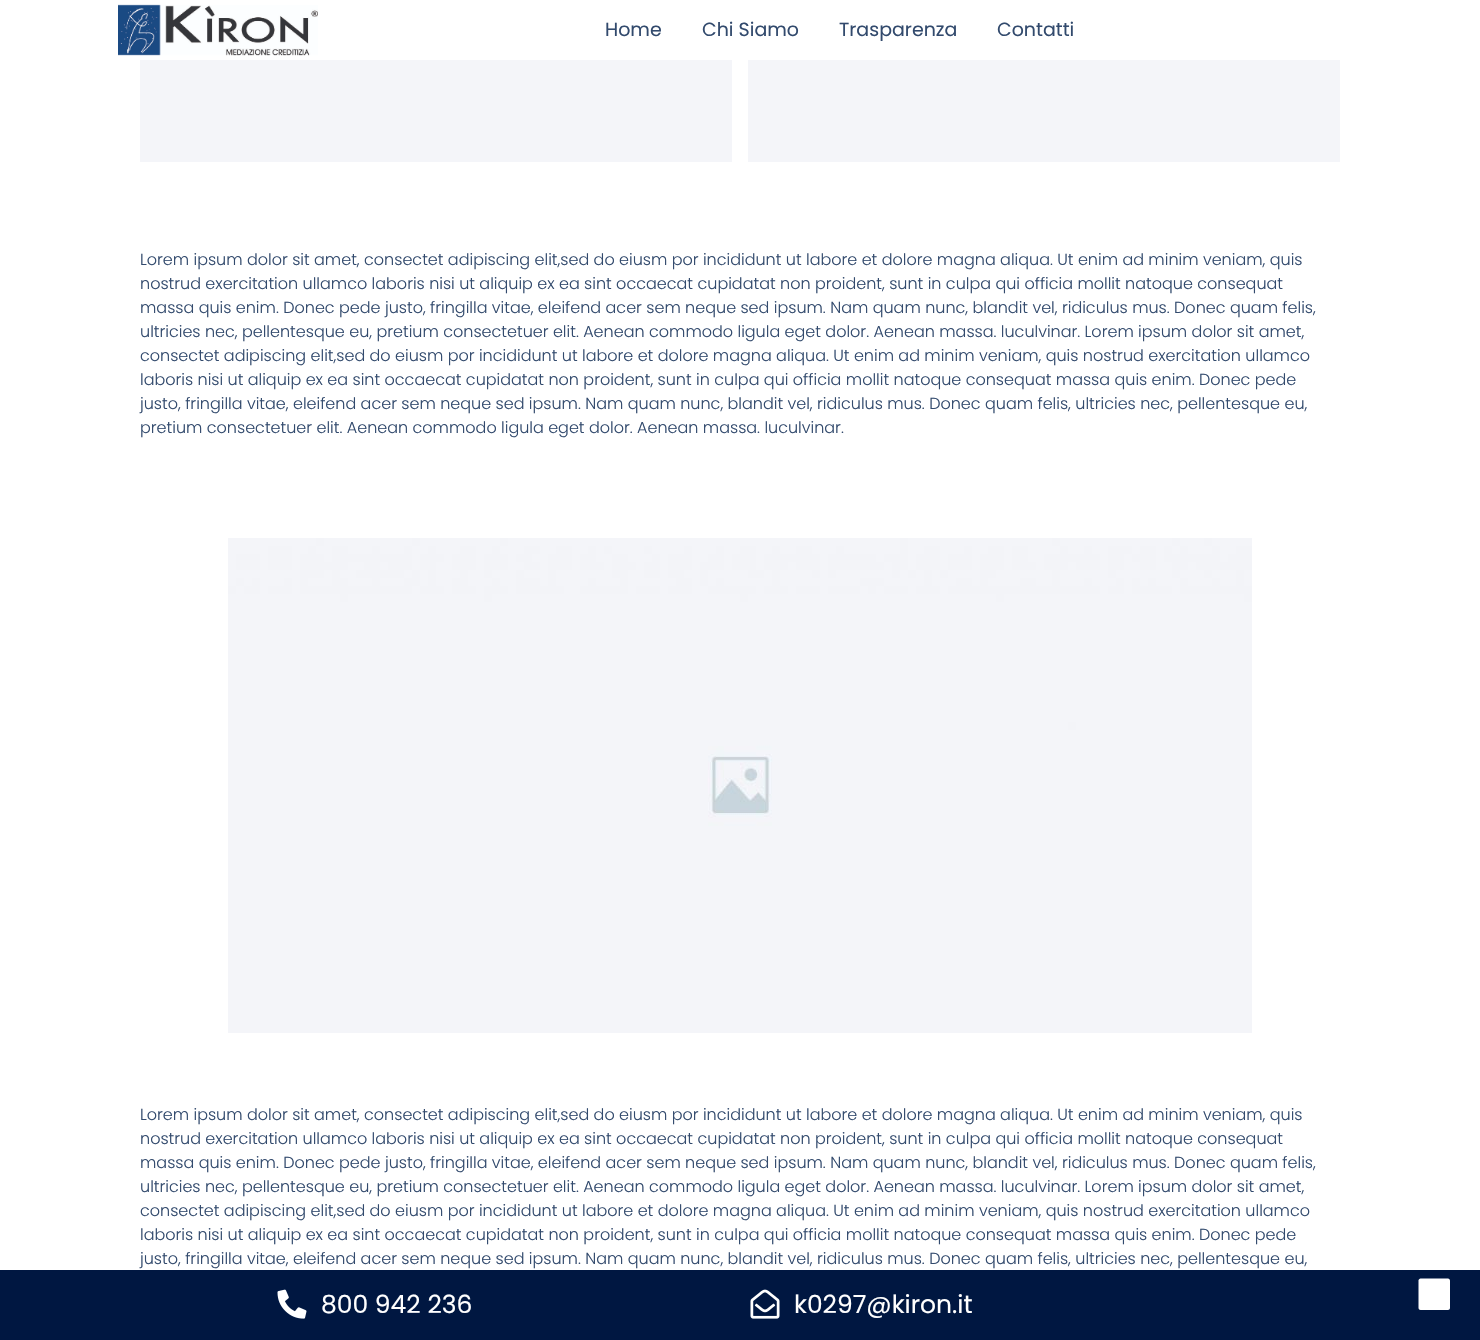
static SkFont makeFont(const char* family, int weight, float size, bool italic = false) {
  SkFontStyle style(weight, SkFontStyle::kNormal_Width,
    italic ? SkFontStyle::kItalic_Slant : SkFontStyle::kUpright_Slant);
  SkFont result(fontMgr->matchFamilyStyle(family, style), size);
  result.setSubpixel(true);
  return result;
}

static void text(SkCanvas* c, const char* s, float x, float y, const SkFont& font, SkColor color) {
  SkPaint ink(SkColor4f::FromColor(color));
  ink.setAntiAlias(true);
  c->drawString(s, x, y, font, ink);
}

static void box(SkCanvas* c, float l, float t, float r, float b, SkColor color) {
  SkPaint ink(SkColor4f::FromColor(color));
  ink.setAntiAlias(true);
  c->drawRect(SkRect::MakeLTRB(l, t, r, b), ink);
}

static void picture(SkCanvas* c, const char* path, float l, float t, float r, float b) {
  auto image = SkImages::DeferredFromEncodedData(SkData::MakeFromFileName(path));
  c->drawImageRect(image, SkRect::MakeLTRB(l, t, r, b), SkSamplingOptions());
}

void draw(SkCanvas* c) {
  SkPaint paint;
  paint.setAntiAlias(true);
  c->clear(0xffffffff);
  picture(c, "img_01.png", 118, 4, 318, 56);
  SkFont face1 = makeFont("Poppins", 400, 19);
  text(c, "Home", 605, 36, face1, 0xff324a6d);
  text(c, "Chi Siamo", 702, 36, face1, 0xff324a6d);
  text(c, "Trasparenza", 839, 36, face1, 0xff324a6d);
  text(c, "Contatti", 997, 36, face1, 0xff324a6d);
  picture(c, "img_02.png", 140, 60, 732, 162);
  picture(c, "img_02.png", 748, 60, 1340, 162);
  SkFont face2 = makeFont("Poppins", 300, 16);
  text(c, "Lorem ipsum dolor sit amet, consectet adipiscing elit,sed do eiusm por incididunt ut labore et dolore magna aliqua. Ut enim ad minim veniam, quis", 140, 265, face2, 0xff324a6d);
  text(c, "nostrud exercitation ullamco laboris nisi ut aliquip ex ea sint occaecat cupidatat non proident, sunt in culpa qui officia mollit natoque consequat", 140, 289, face2, 0xff324a6d);
  text(c, "massa quis enim. Donec pede justo, fringilla vitae, eleifend acer sem neque sed ipsum. Nam quam nunc, blandit vel, ridiculus mus. Donec quam felis,", 140, 313, face2, 0xff324a6d);
  text(c, "ultricies nec, pellentesque eu, pretium consectetuer elit. Aenean commodo ligula eget dolor. Aenean massa. luculvinar. Lorem ipsum dolor sit amet,", 140, 337, face2, 0xff324a6d);
  text(c, "consectet adipiscing elit,sed do eiusm por incididunt ut labore et dolore magna aliqua. Ut enim ad minim veniam, quis nostrud exercitation ullamco", 140, 361, face2, 0xff324a6d);
  text(c, "laboris nisi ut aliquip ex ea sint occaecat cupidatat non proident, sunt in culpa qui officia mollit natoque consequat massa quis enim. Donec pede", 140, 385, face2, 0xff324a6d);
  text(c, "justo, fringilla vitae, eleifend acer sem neque sed ipsum. Nam quam nunc, blandit vel, ridiculus mus. Donec quam felis, ultricies nec, pellentesque eu,", 140, 409, face2, 0xff324a6d);
  text(c, "pretium consectetuer elit. Aenean commodo ligula eget dolor. Aenean massa. luculvinar.", 140, 433, face2, 0xff324a6d);
  picture(c, "img_03.png", 228, 538, 1252, 1033);
  text(c, "Lorem ipsum dolor sit amet, consectet adipiscing elit,sed do eiusm por incididunt ut labore et dolore magna aliqua. Ut enim ad minim veniam, quis", 140, 1120, face2, 0xff324a6d);
  text(c, "nostrud exercitation ullamco laboris nisi ut aliquip ex ea sint occaecat cupidatat non proident, sunt in culpa qui officia mollit natoque consequat", 140, 1144, face2, 0xff324a6d);
  text(c, "massa quis enim. Donec pede justo, fringilla vitae, eleifend acer sem neque sed ipsum. Nam quam nunc, blandit vel, ridiculus mus. Donec quam felis,", 140, 1168, face2, 0xff324a6d);
  text(c, "ultricies nec, pellentesque eu, pretium consectetuer elit. Aenean commodo ligula eget dolor. Aenean massa. luculvinar. Lorem ipsum dolor sit amet,", 140, 1192, face2, 0xff324a6d);
  text(c, "consectet adipiscing elit,sed do eiusm por incididunt ut labore et dolore magna aliqua. Ut enim ad minim veniam, quis nostrud exercitation ullamco", 140, 1216, face2, 0xff324a6d);
  text(c, "laboris nisi ut aliquip ex ea sint occaecat cupidatat non proident, sunt in culpa qui officia mollit natoque consequat massa quis enim. Donec pede", 140, 1240, face2, 0xff324a6d);
  text(c, "justo, fringilla vitae, eleifend acer sem neque sed ipsum. Nam quam nunc, blandit vel, ridiculus mus. Donec quam felis, ultricies nec, pellentesque eu,", 140, 1264, face2, 0xff324a6d);
  box(c, 0, 1270, 1480, 1340, 0xff001741);
  picture(c, "img_04.png", 277, 1289, 307, 1319);
  SkFont face3 = makeFont("Poppins", 400, 25);
  text(c, "800 942 236", 321, 1313, face3, 0xffffffff);
  picture(c, "img_05.png", 750, 1289, 780, 1319);
  text(c, "k0297@kiron.it", 794, 1313, face3, 0xffffffff);
  paint.setColor(0xffffffff);
  c->drawPath(SkPathBuilder().moveTo(1448, 1310).lineTo(1420.5f, 1310).cubicTo(1419.5f, 1310, 1418.5f, 1309, 1418.5f, 1308).lineTo(1418.5f, 1280.5f).cubicTo(1418.5f, 1279.5f, 1419.5f, 1278.5f, 1420.5f, 1278.5f).lineTo(1448, 1278.5f).cubicTo(1449, 1278.5f, 1450, 1279.5f, 1450, 1280.5f).lineTo(1450, 1308).cubicTo(1450, 1309, 1449, 1310, 1448, 1310).close().detach(), paint);
}
